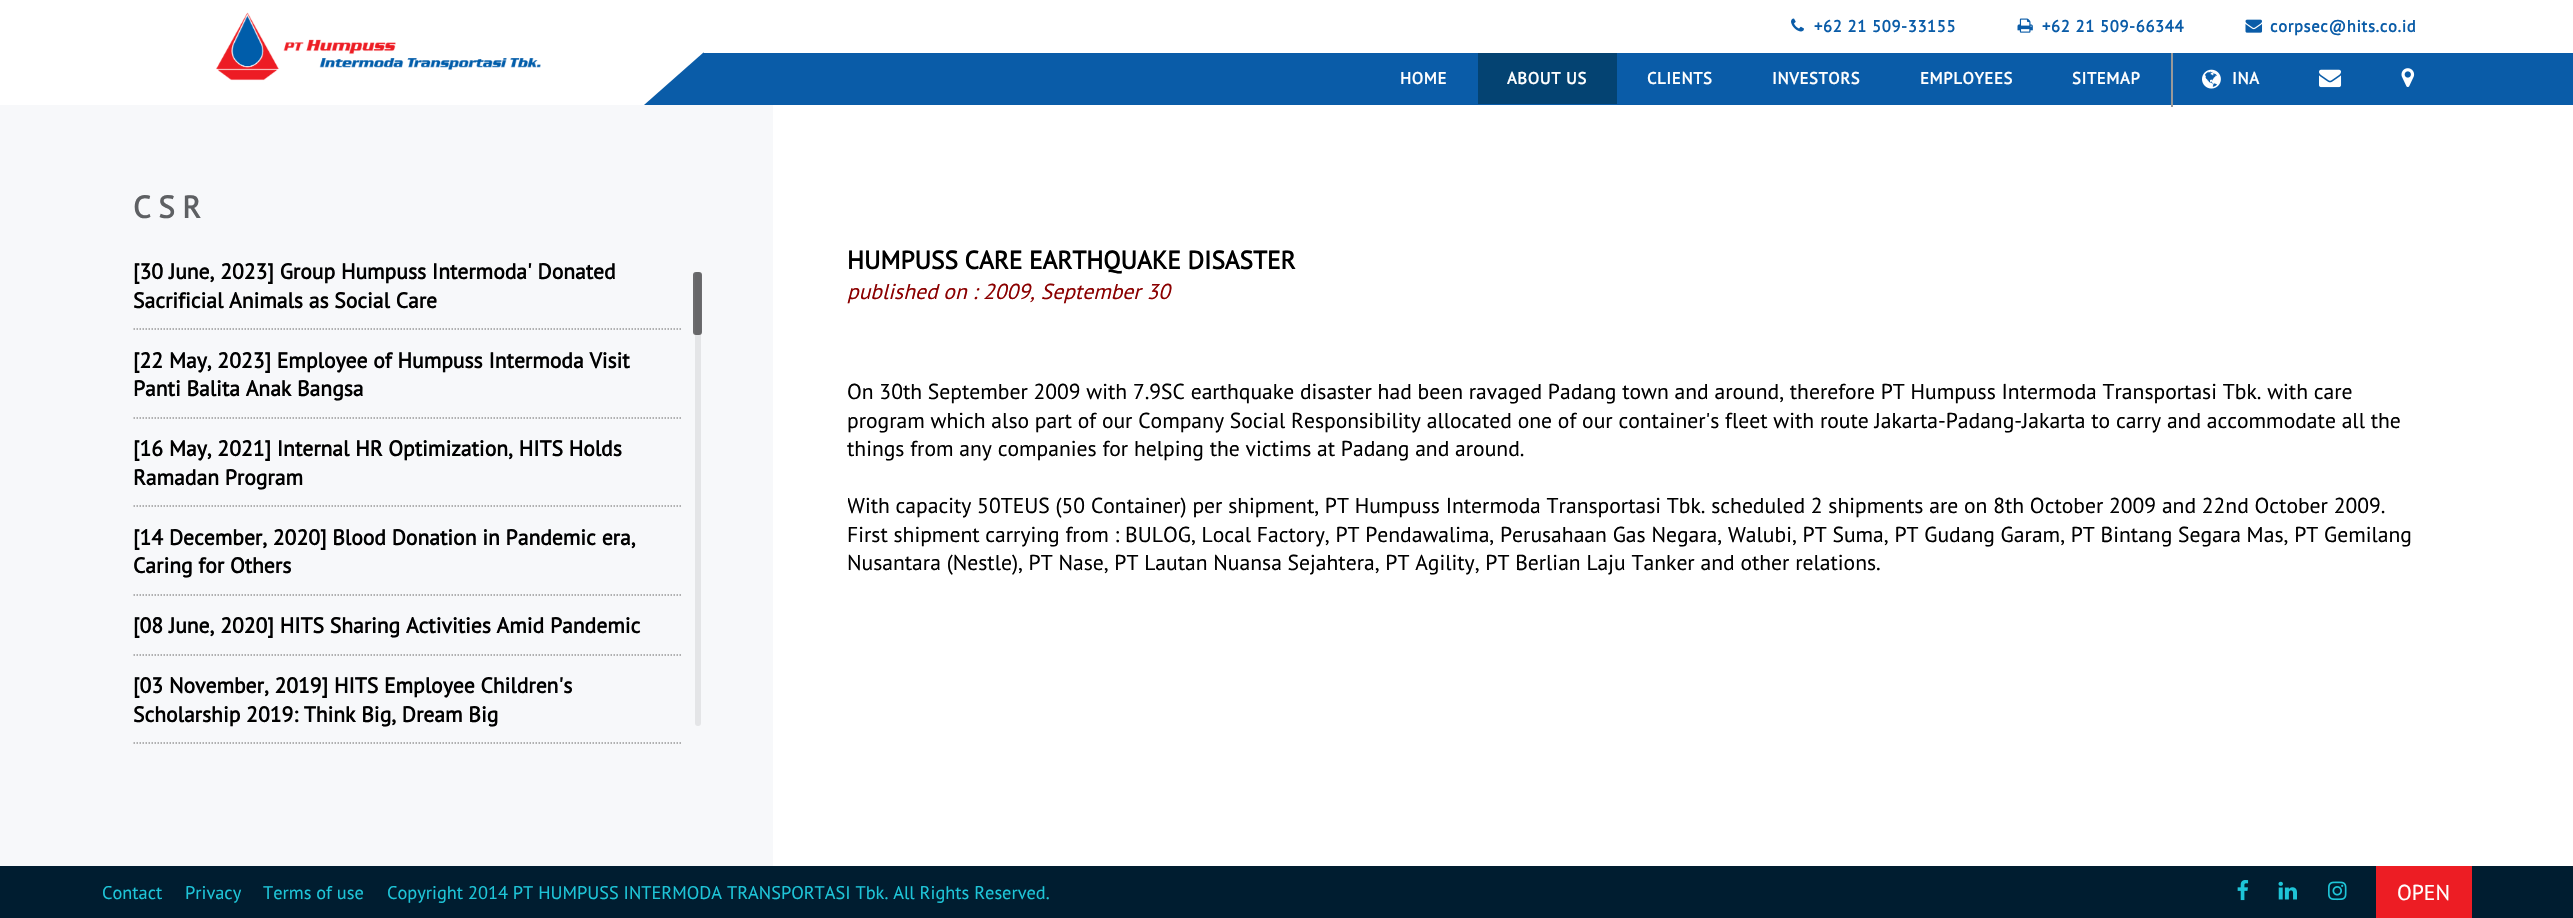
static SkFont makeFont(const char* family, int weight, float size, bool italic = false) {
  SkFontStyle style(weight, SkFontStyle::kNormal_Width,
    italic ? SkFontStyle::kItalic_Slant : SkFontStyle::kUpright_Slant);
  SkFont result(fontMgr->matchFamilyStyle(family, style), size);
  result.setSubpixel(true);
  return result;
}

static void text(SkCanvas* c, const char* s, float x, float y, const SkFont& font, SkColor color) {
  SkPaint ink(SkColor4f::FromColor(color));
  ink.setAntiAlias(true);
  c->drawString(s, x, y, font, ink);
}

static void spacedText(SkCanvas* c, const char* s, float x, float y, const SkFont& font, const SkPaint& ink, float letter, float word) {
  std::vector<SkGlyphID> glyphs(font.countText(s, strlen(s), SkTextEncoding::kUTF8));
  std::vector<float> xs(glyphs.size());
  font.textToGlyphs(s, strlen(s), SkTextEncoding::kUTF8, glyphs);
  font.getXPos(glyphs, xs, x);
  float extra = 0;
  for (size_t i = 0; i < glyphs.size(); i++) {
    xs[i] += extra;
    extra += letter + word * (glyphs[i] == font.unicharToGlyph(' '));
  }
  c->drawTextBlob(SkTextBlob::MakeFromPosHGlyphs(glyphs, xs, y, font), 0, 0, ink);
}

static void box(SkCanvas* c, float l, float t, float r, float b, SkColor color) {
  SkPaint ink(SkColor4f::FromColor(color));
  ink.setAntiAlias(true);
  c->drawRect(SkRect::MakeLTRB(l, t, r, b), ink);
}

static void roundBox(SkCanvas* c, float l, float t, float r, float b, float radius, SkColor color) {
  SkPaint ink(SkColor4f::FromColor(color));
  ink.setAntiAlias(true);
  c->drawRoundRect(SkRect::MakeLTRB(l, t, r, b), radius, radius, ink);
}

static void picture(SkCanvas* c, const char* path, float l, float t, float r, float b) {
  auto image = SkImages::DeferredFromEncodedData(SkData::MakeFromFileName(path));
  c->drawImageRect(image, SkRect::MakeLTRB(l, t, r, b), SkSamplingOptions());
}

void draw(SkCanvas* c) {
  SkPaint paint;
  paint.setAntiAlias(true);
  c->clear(0xfff7f8fa);
  box(c, 644, 53, 2573, 105, 0xff0a5ca8);
  box(c, 0, 0, 644, 105, 0xffffffff);
  picture(c, "img_01.png", 216, 12, 541, 81);
  box(c, 644, 0, 2573, 53, 0xffffffff);
  picture(c, "img_02.png", 1791, 18, 1804, 32);
  SkFont face1 = makeFont("PT Sans", 700, 16.5f);
  paint.setColor(0xff0a5ca8);
  spacedText(c, "+62 21 509-33155", 1814, 32, face1, paint, 0.7f, 0);
  picture(c, "img_03.png", 2017, 18, 2033, 33);
  spacedText(c, "+62 21 509-66344", 2042, 32, face1, paint, 0.7f, 0);
  picture(c, "img_04.png", 2245, 19, 2263, 33);
  spacedText(c, "corpsec@hits.co.id", 2270, 32, face1, paint, 0.7f, 0);
  c->drawPath(SkPathBuilder().moveTo(704, 105).lineTo(644, 105).lineTo(704, 52).close().detach(), paint);
  paint.setColor(0xffffffff);
  c->drawPath(SkPathBuilder().moveTo(644, 105).lineTo(644, 52).lineTo(704, 52).close().detach(), paint);
  spacedText(c, "HOME", 1400, 84, face1, paint, 0.7f, 0);
  box(c, 1478, 53, 1617, 104, 0xff044372);
  spacedText(c, "ABOUT US", 1507, 84, face1, paint, 0.7f, 0);
  spacedText(c, "CLIENTS", 1647, 84, face1, paint, 0.7f, 0);
  spacedText(c, "INVESTORS", 1772, 84, face1, paint, 0.7f, 0);
  spacedText(c, "EMPLOYEES", 1920, 84, face1, paint, 0.7f, 0);
  spacedText(c, "SITEMAP", 2072, 84, face1, paint, 0.7f, 0);
  box(c, 773, 105, 2573, 866, 0xffffffff);
  box(c, 2171, 53, 2173, 107, 0xff999999);
  picture(c, "img_05.png", 2202, 69, 2221, 89);
  spacedText(c, "INA", 2232, 84, face1, paint, 0.7f, 0);
  picture(c, "img_06.png", 2319, 69, 2342, 88);
  picture(c, "img_07.png", 2401, 68, 2415, 87);
  SkFont face2 = makeFont("PT Sans", 700, 31);
  paint.setColor(0xff5e6063);
  spacedText(c, "CSR", 133, 218, face2, paint, 7.5f, 0);
  paint.setStyle(SkPaint::kStroke_Style);
  paint.setStrokeWidth(1.5f);
  paint.setColor(0xff999999);
  paint.setPathEffect(SkDashPathEffect::Make({{1.5f, 1.5f}}, 0));
  c->drawPath(SkPathBuilder().moveTo(133.5f, 329).lineTo(682.5f, 329).detach(), paint);
  paint.setPathEffect(nullptr);
  SkFont face3 = makeFont("PT Sans", 700, 21.6f);
  text(c, "[30 June, 2023] Group Humpuss Intermoda' Donated", 133, 279, face3, 0xff000000);
  text(c, "Sacrificial Animals as Social Care", 133, 308, face3, 0xff000000);
  paint.setPathEffect(SkDashPathEffect::Make({{1.5f, 1.5f}}, 0));
  c->drawPath(SkPathBuilder().moveTo(133.5f, 418).lineTo(682.5f, 418).detach(), paint);
  paint.setPathEffect(nullptr);
  text(c, "[22 May, 2023] Employee of Humpuss Intermoda Visit", 133, 368, face3, 0xff000000);
  text(c, "Panti Balita Anak Bangsa", 133, 396, face3, 0xff000000);
  paint.setPathEffect(SkDashPathEffect::Make({{1.5f, 1.5f}}, 0));
  c->drawPath(SkPathBuilder().moveTo(133.5f, 506).lineTo(682.5f, 506).detach(), paint);
  paint.setPathEffect(nullptr);
  text(c, "[16 May, 2021] Internal HR Optimization, HITS Holds", 133, 456, face3, 0xff000000);
  text(c, "Ramadan Program", 133, 485, face3, 0xff000000);
  paint.setPathEffect(SkDashPathEffect::Make({{1.5f, 1.5f}}, 0));
  c->drawPath(SkPathBuilder().moveTo(133.5f, 595).lineTo(682.5f, 595).detach(), paint);
  paint.setPathEffect(nullptr);
  text(c, "[14 December, 2020] Blood Donation in Pandemic era,", 133, 545, face3, 0xff000000);
  text(c, "Caring for Others", 133, 573, face3, 0xff000000);
  paint.setPathEffect(SkDashPathEffect::Make({{1.5f, 1.5f}}, 0));
  c->drawPath(SkPathBuilder().moveTo(133.5f, 655).lineTo(682.5f, 655).detach(), paint);
  paint.setPathEffect(nullptr);
  text(c, "[08 June, 2020] HITS Sharing Activities Amid Pandemic", 133, 633, face3, 0xff000000);
  paint.setPathEffect(SkDashPathEffect::Make({{1.5f, 1.5f}}, 0));
  c->drawPath(SkPathBuilder().moveTo(133.5f, 743).lineTo(682.5f, 743).detach(), paint);
  paint.setPathEffect(nullptr);
  text(c, "[03 November, 2019] HITS Employee Children's", 133, 693, face3, 0xff000000);
  text(c, "Scholarship 2019: Think Big, Dream Big", 133, 722, face3, 0xff000000);
  roundBox(c, 695, 272, 701, 726, 3, 0xffe4e5e7);
  roundBox(c, 693, 272, 702, 335, 3, 0xbf3e3e3f);
  SkFont face4 = makeFont("PT Sans", 700, 25.25f);
  text(c, "HUMPUSS CARE EARTHQUAKE DISASTER", 847, 269, face4, 0xff000000);
  SkFont face5 = makeFont("PT Sans", 400, 21.6f, true);
  text(c, "published on : 2009, September 30", 847, 299, face5, 0xff8b0000);
  SkFont face6 = makeFont("PT Sans", 400, 21.6f);
  text(c, "On 30th September 2009 with 7.9SC earthquake disaster had been ravaged Padang town and around, therefore PT Humpuss Intermoda Transportasi Tbk. with care", 847, 399, face6, 0xff000000);
  text(c, "program which also part of our Company Social Responsibility allocated one of our container's fleet with route Jakarta-Padang-Jakarta to carry and accommodate all the", 847, 428, face6, 0xff000000);
  text(c, "things from any companies for helping the victims at Padang and around.", 847, 456, face6, 0xff000000);
  c->save();
  c->clipRect(SkRect::MakeLTRB(848, 243, 2417, 576));
  text(c, "With capacity 50TEUS (50 Container) per shipment, PT Humpuss Intermoda Transportasi Tbk. scheduled 2 shipments are on 8th October 2009 and 22nd October 2009.", 847, 513, face6, 0xff000000);
  c->restore();
  text(c, "First shipment carrying from : BULOG, Local Factory, PT Pendawalima, Perusahaan Gas Negara, Walubi, PT Suma, PT Gudang Garam, PT Bintang Segara Mas, PT Gemilang", 847, 542, face6, 0xff000000);
  text(c, "Nusantara (Nestle), PT Nase, PT Lautan Nuansa Sejahtera, PT Agility, PT Berlian Laju Tanker and other relations.", 847, 570, face6, 0xff000000);
  box(c, 0, 866, 2573, 918, 0xff001d30);
  SkFont face7 = makeFont("PT Sans", 400, 18.35f);
  text(c, "Contact", 102, 899, face7, 0xff1ec5d8);
  text(c, "Privacy", 185, 899, face7, 0xff1ec5d8);
  text(c, "Terms of use", 263, 899, face7, 0xff1ec5d8);
  text(c, "Copyright 2014 PT HUMPUSS INTERMODA TRANSPORTASI Tbk. All Rights Reserved.", 387, 899, face7, 0xff1ec5d8);
  picture(c, "img_08.png", 2237, 880, 2249, 901);
  picture(c, "img_09.png", 2278, 881, 2297, 900);
  picture(c, "img_10.png", 2328, 881, 2347, 901);
  box(c, 2376, 866, 2472, 918, 0xffed1d24);
  text(c, "OPEN", 2397, 900, face6, 0xffffffff);
}
